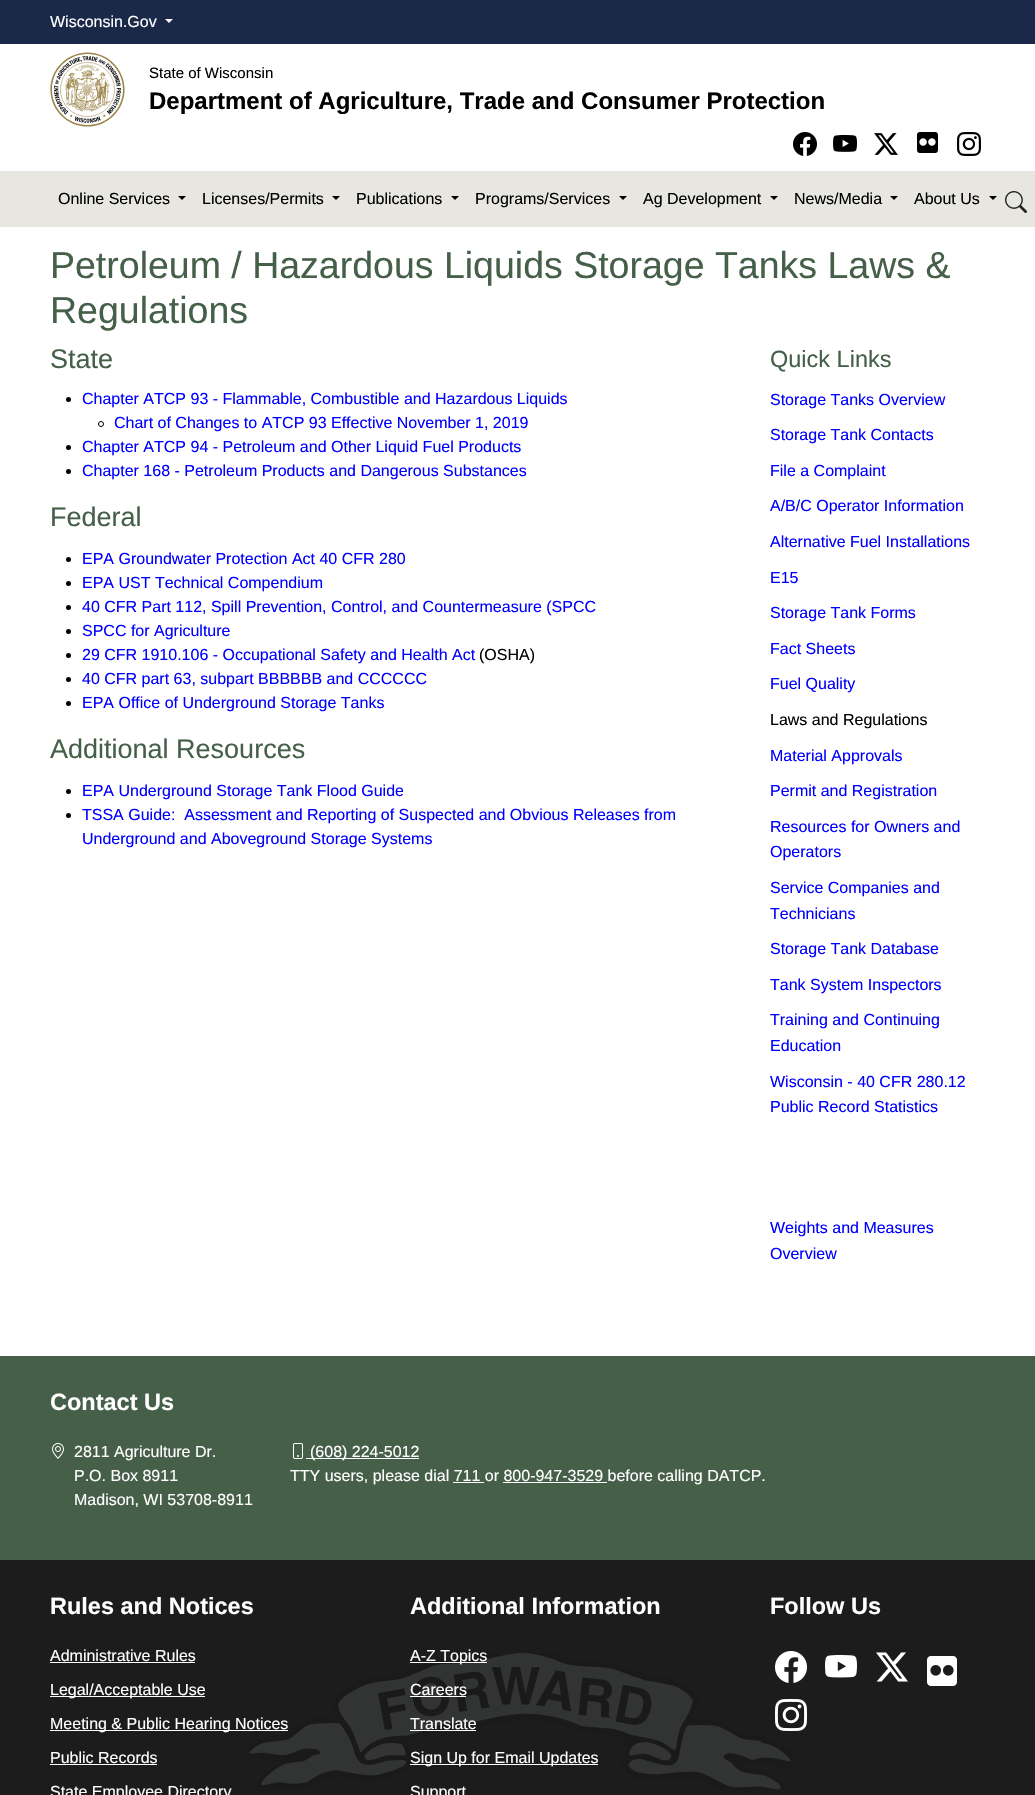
static SkFont makeFont(const char* family, int weight, float size, bool italic = false) {
  SkFontStyle style(weight, SkFontStyle::kNormal_Width,
    italic ? SkFontStyle::kItalic_Slant : SkFontStyle::kUpright_Slant);
  SkFont result(fontMgr->matchFamilyStyle(family, style), size);
  result.setSubpixel(true);
  return result;
}

static void text(SkCanvas* c, const char* s, float x, float y, const SkFont& font, SkColor color) {
  SkPaint ink(SkColor4f::FromColor(color));
  ink.setAntiAlias(true);
  c->drawString(s, x, y, font, ink);
}

static void box(SkCanvas* c, float l, float t, float r, float b, SkColor color) {
  SkPaint ink(SkColor4f::FromColor(color));
  ink.setAntiAlias(true);
  c->drawRect(SkRect::MakeLTRB(l, t, r, b), ink);
}

static void picture(SkCanvas* c, const char* path, float l, float t, float r, float b) {
  auto image = SkImages::DeferredFromEncodedData(SkData::MakeFromFileName(path));
  c->drawImageRect(image, SkRect::MakeLTRB(l, t, r, b), SkSamplingOptions());
}

void draw(SkCanvas* c) {
  SkPaint paint;
  paint.setAntiAlias(true);
  c->clear(0xffffffff);
  box(c, 0, 0, 1035, 44, 0xff192947);
  SkFont face1 = makeFont("Liberation Sans", 400, 16);
  text(c, "Wisconsin.Gov", 50, 27, face1, 0xffffffff);
  paint.setColor(0xffffffff);
  c->drawPath(SkPathBuilder().moveTo(165, 19).lineTo(173, 19).lineTo(169, 23).close().detach(), paint);
  picture(c, "img_01.png", 50, 52, 125, 127);
  SkFont face2 = makeFont("Liberation Sans", 400, 15);
  text(c, "State of Wisconsin", 149, 78, face2, 0xff000000);
  SkFont face3 = makeFont("Liberation Sans", 700, 24);
  text(c, "Department of Agriculture, Trade and Consumer Protection", 149, 109, face3, 0xff000000);
  picture(c, "img_02.png", 793, 132, 817, 156);
  picture(c, "img_03.png", 833, 134, 857, 152);
  picture(c, "img_04.png", 874, 133, 898, 155);
  picture(c, "img_05.png", 917, 132, 938, 153);
  picture(c, "img_06.png", 957, 132, 981, 156);
  box(c, 0, 171, 1035, 227, 0xffe7e6e0);
  text(c, "Online Services", 58, 204, face1, 0xff000000);
  paint.setColor(0xff000000);
  c->drawPath(SkPathBuilder().moveTo(178, 196).lineTo(186, 196).lineTo(182, 200).close().detach(), paint);
  text(c, "Licenses/Permits", 202, 204, face1, 0xff000000);
  c->drawPath(SkPathBuilder().moveTo(332, 196).lineTo(340, 196).lineTo(336, 200).close().detach(), paint);
  text(c, "Publications", 356, 204, face1, 0xff000000);
  c->drawPath(SkPathBuilder().moveTo(451, 196).lineTo(459, 196).lineTo(455, 200).close().detach(), paint);
  text(c, "Programs/Services", 475, 204, face1, 0xff000000);
  c->drawPath(SkPathBuilder().moveTo(619, 196).lineTo(627, 196).lineTo(623, 200).close().detach(), paint);
  text(c, "Ag Development", 643, 204, face1, 0xff000000);
  c->drawPath(SkPathBuilder().moveTo(770, 196).lineTo(778, 196).lineTo(774, 200).close().detach(), paint);
  text(c, "News/Media", 794, 204, face1, 0xff000000);
  c->drawPath(SkPathBuilder().moveTo(890, 196).lineTo(898, 196).lineTo(894, 200).close().detach(), paint);
  text(c, "About Us", 914, 204, face1, 0xff000000);
  c->drawPath(SkPathBuilder().moveTo(989, 196).lineTo(997, 196).lineTo(993, 200).close().detach(), paint);
  picture(c, "img_07.png", 1005, 191, 1027, 213);
  SkFont face4 = makeFont("Liberation Sans", 400, 37.5f);
  text(c, "Petroleum / Hazardous Liquids Storage Tanks Laws &", 50, 278, face4, 0xff455f49);
  text(c, "Regulations", 50, 323, face4, 0xff455f49);
  SkFont face5 = makeFont("Liberation Sans", 400, 27);
  text(c, "State", 50, 368, face5, 0xff455f49);
  c->drawCircle(68.5f, 399.5f, 2.5f, paint);
  text(c, "Chapter ATCP 93 - Flammable, Combustible and Hazardous Liquids", 82, 404, face1, 0xff0000ff);
  paint.setStyle(SkPaint::kStroke_Style);
  paint.setStrokeWidth(1);
  c->drawCircle(101, 424, 2.5f, paint);
  text(c, "Chart of Changes to ATCP 93 Effective November 1, 2019", 114, 428, face1, 0xff0000ff);
  paint.setStyle(SkPaint::kFill_Style);
  c->drawCircle(68.5f, 447.5f, 2.5f, paint);
  text(c, "Chapter ATCP 94 - Petroleum and Other Liquid Fuel Products", 82, 452, face1, 0xff0000ff);
  c->drawCircle(68.5f, 471.5f, 2.5f, paint);
  text(c, "Chapter 168 - Petroleum Products and Dangerous Substances", 82, 476, face1, 0xff0000ff);
  text(c, "Federal", 50, 526, face5, 0xff455f49);
  c->drawCircle(68.5f, 559.5f, 2.5f, paint);
  text(c, "EPA Groundwater Protection Act 40 CFR 280", 82, 564, face1, 0xff0000ff);
  c->drawCircle(68.5f, 583.5f, 2.5f, paint);
  text(c, "EPA UST Technical Compendium", 82, 588, face1, 0xff0000ff);
  c->drawCircle(68.5f, 607.5f, 2.5f, paint);
  text(c, "40 CFR Part 112, Spill Prevention, Control, and Countermeasure (SPCC", 82, 612, face1, 0xff0000ff);
  c->drawCircle(68.5f, 631.5f, 2.5f, paint);
  text(c, "SPCC for Agriculture", 82, 636, face1, 0xff0000ff);
  c->drawCircle(68.5f, 655.5f, 2.5f, paint);
  text(c, "29 CFR 1910.106 - Occupational Safety and Health Act", 82, 660, face1, 0xff0000ff);
  text(c, "(OSHA)", 479, 660, face1, 0xff000000);
  c->drawCircle(68.5f, 679.5f, 2.5f, paint);
  text(c, "40 CFR part 63, subpart BBBBBB and CCCCCC", 82, 684, face1, 0xff0000ff);
  c->drawCircle(68.5f, 703.5f, 2.5f, paint);
  text(c, "EPA Office of Underground Storage Tanks", 82, 708, face1, 0xff0000ff);
  text(c, "Additional Resources", 50, 758, face5, 0xff455f49);
  c->drawCircle(68.5f, 791.5f, 2.5f, paint);
  text(c, "EPA Underground Storage Tank Flood Guide", 82, 796, face1, 0xff0000ff);
  c->drawCircle(68.5f, 815.5f, 2.5f, paint);
  text(c, "TSSA Guide:  Assessment and Reporting of Suspected and Obvious Releases from", 82, 820, face1, 0xff0000ff);
  text(c, "Underground and Aboveground Storage Systems", 82, 844, face1, 0xff0000ff);
  SkFont face6 = makeFont("Liberation Sans", 400, 23.5f);
  text(c, "Quick Links", 770, 367, face6, 0xff455f49);
  text(c, "Storage Tanks Overview", 770, 405, face1, 0xff0000ff);
  text(c, "Storage Tank Contacts", 770, 440, face1, 0xff0000ff);
  text(c, "File a Complaint", 770, 476, face1, 0xff0000ff);
  text(c, "A/B/C Operator Information", 770, 511, face1, 0xff0000ff);
  text(c, "Alternative Fuel Installations", 770, 547, face1, 0xff0000ff);
  text(c, "E15", 770, 583, face1, 0xff0000ff);
  text(c, "Storage Tank Forms", 770, 618, face1, 0xff0000ff);
  text(c, "Fact Sheets", 770, 654, face1, 0xff0000ff);
  text(c, "Fuel Quality", 770, 689, face1, 0xff0000ff);
  text(c, "Laws and Regulations", 770, 725, face1, 0xff000000);
  text(c, "Material Approvals", 770, 761, face1, 0xff0000ff);
  text(c, "Permit and Registration", 770, 796, face1, 0xff0000ff);
  text(c, "Resources for Owners and", 770, 832, face1, 0xff0000ff);
  text(c, "Operators", 770, 857, face1, 0xff0000ff);
  text(c, "Service Companies and", 770, 893, face1, 0xff0000ff);
  text(c, "Technicians", 770, 919, face1, 0xff0000ff);
  text(c, "Storage Tank Database", 770, 954, face1, 0xff0000ff);
  text(c, "Tank System Inspectors", 770, 990, face1, 0xff0000ff);
  text(c, "Training and Continuing", 770, 1025, face1, 0xff0000ff);
  text(c, "Education", 770, 1051, face1, 0xff0000ff);
  text(c, "Wisconsin - 40 CFR 280.12", 770, 1087, face1, 0xff0000ff);
  text(c, "Public Record Statistics", 770, 1112, face1, 0xff0000ff);
  text(c, "Weights and Measures", 770, 1233, face1, 0xff0000ff);
  text(c, "Overview", 770, 1259, face1, 0xff0000ff);
  box(c, 0, 1356, 1035, 1560, 0xff455f49);
  SkFont face7 = makeFont("Liberation Sans", 700, 23.5f);
  text(c, "Contact Us", 50, 1410, face7, 0xffffffff);
  picture(c, "img_08.png", 52, 1443, 64, 1459);
  text(c, "2811 Agriculture Dr.", 74, 1457, face1, 0xffffffff);
  text(c, "P.O. Box 8911", 74, 1481, face1, 0xffffffff);
  text(c, "Madison, WI 53708-8911", 74, 1505, face1, 0xffffffff);
  picture(c, "img_09.png", 293, 1443, 303, 1459);
  box(c, 306, 1458, 419, 1459, 0xffffffff);
  text(c, "(608) 224-5012", 310, 1457, face1, 0xffffffff);
  text(c, "TTY users, please dial 711 or 800-947-3529 before calling DATCP.", 290, 1481, face1, 0xffffffff);
  box(c, 453, 1482, 484, 1483, 0xffffffff);
  box(c, 503, 1482, 607, 1483, 0xffffffff);
  box(c, 0, 1560, 1035, 1795, 0xff1c1c1c);
  picture(c, "img_10.png", 249, 1653, 791, 1790);
  text(c, "Rules and Notices", 50, 1614, face7, 0xffffffff);
  text(c, "Administrative Rules", 50, 1661, face1, 0xffffffff);
  box(c, 50, 1662, 195, 1663, 0xffffffff);
  box(c, 50, 1696, 205, 1697, 0xffffffff);
  text(c, "Legal/Acceptable Use", 50, 1695, face1, 0xffffffff);
  box(c, 50, 1730, 288, 1731, 0xffffffff);
  text(c, "Meeting & Public Hearing Notices", 50, 1729, face1, 0xffffffff);
  text(c, "Public Records", 50, 1763, face1, 0xffffffff);
  box(c, 50, 1764, 157, 1765, 0xffffffff);
  text(c, "State Employee Directory", 50, 1797, face1, 0xffffffff);
  text(c, "Additional Information", 410, 1614, face7, 0xffffffff);
  box(c, 410, 1662, 487, 1663, 0xffffffff);
  text(c, "A-Z Topics", 410, 1661, face1, 0xffffffff);
  text(c, "Careers", 410, 1695, face1, 0xffffffff);
  box(c, 410, 1696, 466, 1697, 0xffffffff);
  text(c, "Translate", 410, 1729, face1, 0xffffffff);
  box(c, 410, 1730, 476, 1731, 0xffffffff);
  box(c, 410, 1764, 598, 1765, 0xffffffff);
  text(c, "Sign Up for Email Updates", 410, 1763, face1, 0xffffffff);
  text(c, "Support", 410, 1797, face1, 0xffffffff);
  text(c, "Follow Us", 770, 1614, face7, 0xffffffff);
  picture(c, "img_11.png", 775, 1651, 807, 1683);
  picture(c, "img_12.png", 825, 1654, 857, 1678);
  picture(c, "img_13.png", 876, 1652, 908, 1682);
  picture(c, "img_14.png", 927, 1656, 957, 1686);
  picture(c, "img_15.png", 775, 1699, 807, 1731);
}
